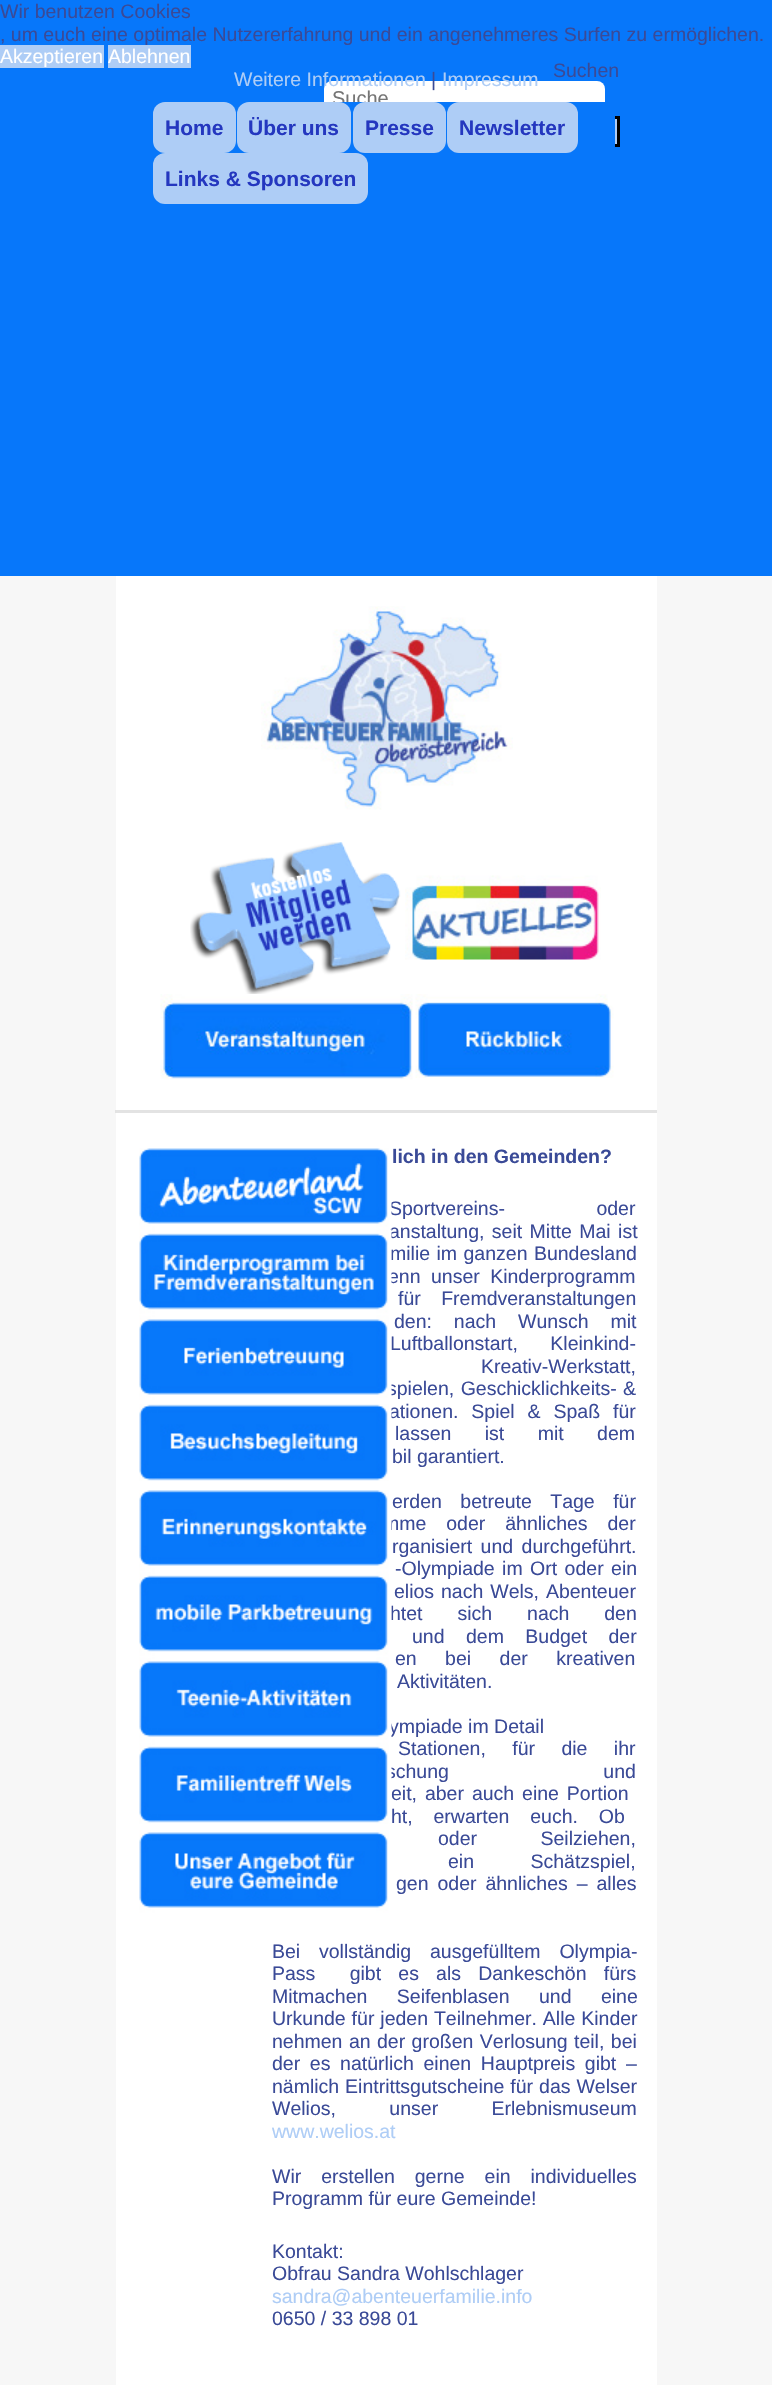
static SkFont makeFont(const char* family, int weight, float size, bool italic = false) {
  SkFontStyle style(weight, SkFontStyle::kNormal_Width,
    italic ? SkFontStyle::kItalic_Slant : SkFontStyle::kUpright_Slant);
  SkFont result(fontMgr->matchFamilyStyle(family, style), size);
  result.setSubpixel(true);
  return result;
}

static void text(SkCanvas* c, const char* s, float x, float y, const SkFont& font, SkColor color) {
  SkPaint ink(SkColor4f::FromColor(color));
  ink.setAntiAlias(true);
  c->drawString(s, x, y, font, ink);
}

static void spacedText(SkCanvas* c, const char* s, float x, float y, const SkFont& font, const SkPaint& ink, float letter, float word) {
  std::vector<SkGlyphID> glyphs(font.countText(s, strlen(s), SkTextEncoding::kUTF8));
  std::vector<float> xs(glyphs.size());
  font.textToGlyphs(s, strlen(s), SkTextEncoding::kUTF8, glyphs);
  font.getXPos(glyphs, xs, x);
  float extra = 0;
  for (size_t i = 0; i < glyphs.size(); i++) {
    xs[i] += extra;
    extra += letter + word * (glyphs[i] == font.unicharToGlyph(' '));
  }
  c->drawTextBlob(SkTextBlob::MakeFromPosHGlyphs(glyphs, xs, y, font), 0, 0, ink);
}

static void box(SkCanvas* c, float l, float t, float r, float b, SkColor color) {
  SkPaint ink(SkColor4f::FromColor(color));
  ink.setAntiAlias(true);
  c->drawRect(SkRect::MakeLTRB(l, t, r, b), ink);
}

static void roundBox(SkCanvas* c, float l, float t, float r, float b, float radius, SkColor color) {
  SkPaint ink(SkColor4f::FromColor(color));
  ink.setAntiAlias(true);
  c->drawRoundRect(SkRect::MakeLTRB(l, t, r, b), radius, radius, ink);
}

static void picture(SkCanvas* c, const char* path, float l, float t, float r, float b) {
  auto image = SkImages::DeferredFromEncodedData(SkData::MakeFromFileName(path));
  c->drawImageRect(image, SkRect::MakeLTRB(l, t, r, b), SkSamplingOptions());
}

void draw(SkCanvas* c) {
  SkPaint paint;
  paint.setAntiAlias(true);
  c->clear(0xfff7f7f7);
  box(c, 115, 1110, 116, 1113, 0xffe2e2e2);
  box(c, 0, 0, 772, 576, 0xff0777fa);
  SkFont face1 = makeFont("Liberation Sans", 400, 19.5f);
  text(c, "Wir benutzen Cookies", 0, 18, face1, 0xff3a4a97);
  text(c, ", um euch eine optimale Nutzererfahrung und ein angenehmeres Surfen zu ermöglichen.", 0, 41, face1, 0xff3a4a97);
  box(c, 0, 45, 104, 68, 0xffaecdf6);
  text(c, "Akzeptieren", 0, 63, face1, 0xffffffff);
  box(c, 108, 45, 191, 68, 0xffaecdf6);
  text(c, "Ablehnen", 108, 63, face1, 0xffffffff);
  roundBox(c, 324, 81, 605, 116, 8, 0xffffffff);
  text(c, "Weitere Informationen", 234, 86, face1, 0xffaecdf6);
  text(c, "|", 431, 86, face1, 0xff3a4a97);
  text(c, "Impressum", 442, 86, face1, 0xffaecdf6);
  text(c, "Suchen", 553, 77, face1, 0xff3a4a97);
  SkFont face2 = makeFont("Liberation Sans", 400, 20);
  text(c, "Suche", 332, 105, face2, 0xff757575);
  box(c, 615, 119, 617, 144, 0xffaecdf6);
  paint.setStyle(SkPaint::kStroke_Style);
  paint.setStrokeWidth(3);
  paint.setColor(0xff000000);
  c->drawRect(SkRect::MakeLTRB(529.5f, 117.5f, 618.5f, 145.5f), paint);
  box(c, 324, 102, 615, 147, 0xff0777fa);
  roundBox(c, 153, 102, 236, 153, 12, 0xffaecdf6);
  SkFont face3 = makeFont("Liberation Sans", 700, 21);
  text(c, "Home", 165, 135, face3, 0xff2437bf);
  roundBox(c, 237, 102, 351, 153, 12, 0xffaecdf6);
  text(c, "Über uns", 248, 135, face3, 0xff2437bf);
  roundBox(c, 353, 102, 446, 153, 12, 0xffaecdf6);
  text(c, "Presse", 365, 135, face3, 0xff2437bf);
  roundBox(c, 447, 102, 578, 153, 12, 0xffaecdf6);
  text(c, "Newsletter", 459, 135, face3, 0xff2437bf);
  roundBox(c, 153, 153, 368, 204, 12, 0xffaecdf6);
  text(c, "Links & Sponsoren", 165, 186, face3, 0xff2437bf);
  box(c, 116, 576, 657, 2385, 0xffffffff);
  box(c, 116, 1110, 657, 1113, 0xffe3e3e3);
  picture(c, "img_01.png", 261, 606, 513, 810);
  picture(c, "img_02.png", 190, 842, 401, 994);
  picture(c, "img_03.png", 405, 875, 601, 960);
  picture(c, "img_04.png", 160, 994, 413, 1080);
  picture(c, "img_05.png", 415, 994, 614, 1078);
  paint.setStyle(SkPaint::kFill_Style);
  paint.setColor(0xff3a4a97);
  spacedText(c, "Sportvereins- oder", 389, 1215, face1, paint, 0, 86);
  spacedText(c, "anstaltung, seit Mitte Mai ist", 389, 1238, face1, paint, 0, 2);
  picture(c, "img_06.png", 139, 1148, 392, 1230);
  spacedText(c, "milie im ganzen Bundesland", 390, 1260, face1, paint, 0, 1);
  spacedText(c, "enn unser Kinderprogramm", 388, 1283, face1, paint, 0, 5);
  picture(c, "img_07.png", 139, 1229, 392, 1315);
  spacedText(c, "Luftballonstart, Kleinkind-", 390, 1350, face1, paint, 0, 27);
  spacedText(c, "spielen, Geschicklichkeits- &", 387, 1395, face1, paint, 0, 1);
  picture(c, "img_08.png", 139, 1315, 392, 1400);
  spacedText(c, "ationen. Spiel & Spaß für", 389, 1418, face1, paint, 0, 7.5f);
  picture(c, "img_09.png", 139, 1404, 392, 1481);
  spacedText(c, "mme oder ähnliches der", 383, 1530, face1, paint, 0, 14.5f);
  picture(c, "img_10.png", 139, 1490, 392, 1572);
  spacedText(c, "htet sich nach den", 390, 1620, face1, paint, 0, 29.5f);
  picture(c, "img_11.png", 139, 1571, 392, 1657);
  text(c, "ympiade im Detail", 389, 1733, face1, 0xff3a4a97);
  picture(c, "img_12.png", 139, 1657, 392, 1743);
  spacedText(c, "schung und", 386, 1778, face1, paint, 0, 149);
  spacedText(c, "eit, aber auch eine Portion", 391, 1800, face1, paint, 0, 2.5f);
  picture(c, "img_13.png", 139, 1742, 392, 1824);
  picture(c, "img_14.png", 139, 1830, 392, 1914);
  SkFont face4 = makeFont("Liberation Sans", 700, 19.5f);
  text(c, "lich in den Gemeinden?", 392, 1163, face4, 0xff3a4a97);
  spacedText(c, "für Fremdveranstaltungen", 398, 1305, face1, paint, 0, 15);
  spacedText(c, "den: nach Wunsch mit", 394, 1328, face1, paint, 0, 16.5f);
  spacedText(c, "Kreativ-Werkstatt,", 481, 1373, face1, paint, 0, 133);
  spacedText(c, "lassen ist mit dem", 395, 1440, face1, paint, 0, 28);
  text(c, "bil garantiert.", 392, 1463, face1, 0xff3a4a97);
  spacedText(c, "erden betreute Tage für", 392, 1508, face1, paint, 0, 13);
  spacedText(c, "rganisiert und durchgeführt.", 392, 1553, face1, paint, 0, 3);
  spacedText(c, "-Olympiade im Ort oder ein", 395, 1575, face1, paint, 0, 2);
  spacedText(c, "elios nach Wels, Abenteuer", 394, 1598, face1, paint, 0, 1.5f);
  spacedText(c, "und dem Budget der", 412, 1643, face1, paint, 0, 16);
  spacedText(c, "en bei der kreativen", 395, 1665, face1, paint, 0, 23);
  text(c, "Aktivitäten.", 397, 1688, face1, 0xff3a4a97);
  spacedText(c, "Stationen, für die ihr", 398, 1755, face1, paint, 0, 21);
  spacedText(c, "ht,  erwarten  euch.  Ob", 391, 1823, face1, paint, 0, 5);
  spacedText(c, "oder Seilziehen,", 438, 1845, face1, paint, 0, 58);
  spacedText(c, "ein Schätzspiel,", 448, 1868, face1, paint, 0, 51);
  spacedText(c, "gen oder ähnliches – alles", 396, 1890, face1, paint, 0, 3.5f);
  spacedText(c, "Bei  vollständig  ausgefülltem  Olympia-", 272, 1958, face1, paint, 0, 4);
  spacedText(c, "Pass  gibt es als Dankeschön fürs", 272, 1980, face1, paint, 0, 11.75f);
  spacedText(c, "Mitmachen Seifenblasen und eine", 272, 2003, face1, paint, 0, 24);
  spacedText(c, "Urkunde für jeden Teilnehmer. Alle Kinder", 272, 2025, face1, paint, 0, 0.5f);
  spacedText(c, "nehmen an der großen Verlosung teil, bei", 272, 2048, face1, paint, 0, 1);
  spacedText(c, "der es natürlich einen Hauptpreis gibt –", 272, 2070, face1, paint, 0, 4.25f);
  spacedText(c, "nämlich Eintrittsgutscheine für das Welser", 272, 2093, face1, paint, 0, 0.5f);
  spacedText(c, "Welios, unser Erlebnismuseum", 272, 2115, face1, paint, 0, 48);
  text(c, "www.welios.at", 272, 2138, face1, 0xffaecdf6);
  spacedText(c, "Wir erstellen gerne ein individuelles", 272, 2183, face1, paint, 0, 14.5f);
  text(c, "Programm für eure Gemeinde!", 272, 2205, face1, 0xff3a4a97);
  text(c, "Kontakt:", 272, 2258, face1, 0xff3a4a97);
  text(c, "Obfrau Sandra Wohlschlager", 272, 2280, face1, 0xff3a4a97);
  text(c, "sandra@abenteuerfamilie.info", 272, 2303, face1, 0xffaecdf6);
  text(c, "0650 / 33 898 01", 272, 2325, face1, 0xff3a4a97);
}
